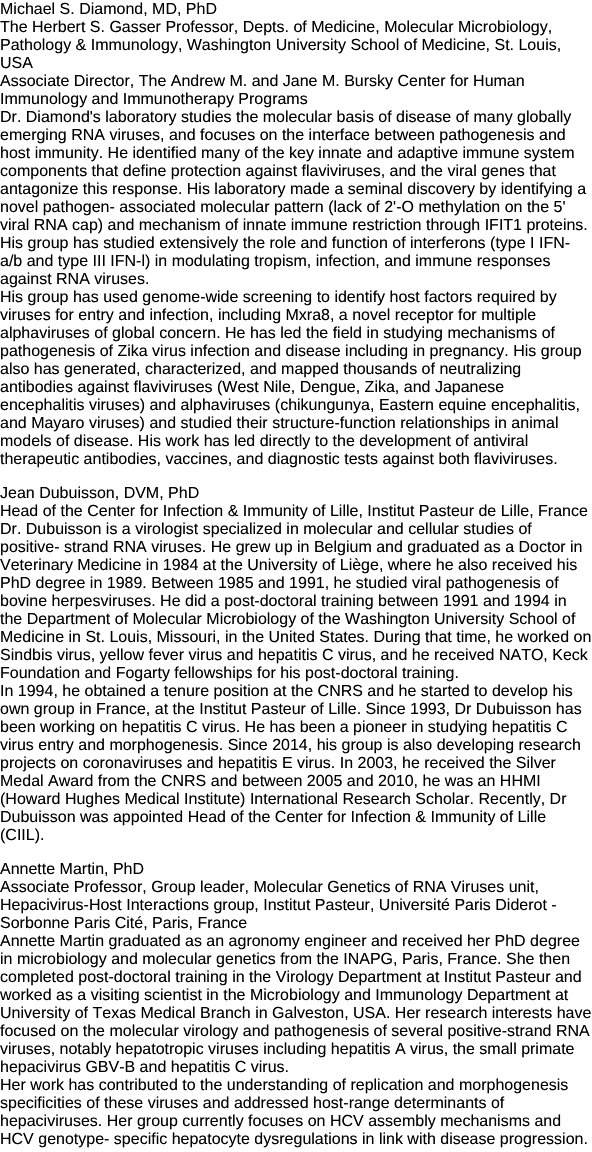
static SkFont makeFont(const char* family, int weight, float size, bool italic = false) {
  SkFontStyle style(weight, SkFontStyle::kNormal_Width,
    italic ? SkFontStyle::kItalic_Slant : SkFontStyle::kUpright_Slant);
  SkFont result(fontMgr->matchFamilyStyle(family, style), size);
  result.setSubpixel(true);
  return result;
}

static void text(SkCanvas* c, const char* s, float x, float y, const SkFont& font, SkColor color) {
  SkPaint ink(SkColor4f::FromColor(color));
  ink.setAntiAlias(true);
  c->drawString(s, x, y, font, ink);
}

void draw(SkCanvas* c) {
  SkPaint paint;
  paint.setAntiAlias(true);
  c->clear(0xffffffff);
  SkFont face1 = makeFont("Liberation Sans", 400, 16);
  text(c, "Michael S. Diamond, MD, PhD", 0, 14, face1, 0xff000000);
  text(c, "The Herbert S. Gasser Professor, Depts. of Medicine, Molecular Microbiology,", 0, 32, face1, 0xff000000);
  text(c, "Pathology & Immunology, Washington University School of Medicine, St. Louis,", 0, 50, face1, 0xff000000);
  text(c, "USA", 0, 68, face1, 0xff000000);
  text(c, "Associate Director, The Andrew M. and Jane M. Bursky Center for Human", 0, 86, face1, 0xff000000);
  text(c, "Immunology and Immunotherapy Programs", 0, 104, face1, 0xff000000);
  text(c, "Dr. Diamond's laboratory studies the molecular basis of disease of many globally", 0, 122, face1, 0xff000000);
  text(c, "emerging RNA viruses, and focuses on the interface between pathogenesis and", 0, 140, face1, 0xff000000);
  text(c, "host immunity. He identified many of the key innate and adaptive immune system", 0, 158, face1, 0xff000000);
  text(c, "components that define protection against flaviviruses, and the viral genes that", 0, 176, face1, 0xff000000);
  text(c, "antagonize this response. His laboratory made a seminal discovery by identifying a", 0, 194, face1, 0xff000000);
  text(c, "novel pathogen- associated molecular pattern (lack of 2'-O methylation on the 5'", 0, 212, face1, 0xff000000);
  text(c, "viral RNA cap) and mechanism of innate immune restriction through IFIT1 proteins.", 0, 230, face1, 0xff000000);
  text(c, "His group has studied extensively the role and function of interferons (type I IFN-", 0, 248, face1, 0xff000000);
  text(c, "a/b and type III IFN-l) in modulating tropism, infection, and immune responses", 0, 266, face1, 0xff000000);
  text(c, "against RNA viruses.", 0, 284, face1, 0xff000000);
  text(c, "His group has used genome-wide screening to identify host factors required by", 0, 302, face1, 0xff000000);
  text(c, "viruses for entry and infection, including Mxra8, a novel receptor for multiple", 0, 320, face1, 0xff000000);
  text(c, "alphaviruses of global concern. He has led the field in studying mechanisms of", 0, 338, face1, 0xff000000);
  text(c, "pathogenesis of Zika virus infection and disease including in pregnancy. His group", 0, 356, face1, 0xff000000);
  text(c, "also has generated, characterized, and mapped thousands of neutralizing", 0, 374, face1, 0xff000000);
  text(c, "antibodies against flaviviruses (West Nile, Dengue, Zika, and Japanese", 0, 392, face1, 0xff000000);
  text(c, "encephalitis viruses) and alphaviruses (chikungunya, Eastern equine encephalitis,", 0, 410, face1, 0xff000000);
  text(c, "and Mayaro viruses) and studied their structure-function relationships in animal", 0, 428, face1, 0xff000000);
  text(c, "models of disease. His work has led directly to the development of antiviral", 0, 446, face1, 0xff000000);
  text(c, "therapeutic antibodies, vaccines, and diagnostic tests against both flaviviruses.", 0, 464, face1, 0xff000000);
  text(c, "Jean Dubuisson, DVM, PhD", 0, 498, face1, 0xff000000);
  text(c, "Head of the Center for Infection & Immunity of Lille, Institut Pasteur de Lille, France", 0, 516, face1, 0xff000000);
  text(c, "Dr. Dubuisson is a virologist specialized in molecular and cellular studies of", 0, 534, face1, 0xff000000);
  text(c, "positive- strand RNA viruses. He grew up in Belgium and graduated as a Doctor in", 0, 552, face1, 0xff000000);
  text(c, "Veterinary Medicine in 1984 at the University of Liège, where he also received his", 0, 570, face1, 0xff000000);
  text(c, "PhD degree in 1989. Between 1985 and 1991, he studied viral pathogenesis of", 0, 588, face1, 0xff000000);
  text(c, "bovine herpesviruses. He did a post-doctoral training between 1991 and 1994 in", 0, 606, face1, 0xff000000);
  text(c, "the Department of Molecular Microbiology of the Washington University School of", 0, 624, face1, 0xff000000);
  text(c, "Medicine in St. Louis, Missouri, in the United States. During that time, he worked on", 0, 642, face1, 0xff000000);
  text(c, "Sindbis virus, yellow fever virus and hepatitis C virus, and he received NATO, Keck", 0, 660, face1, 0xff000000);
  text(c, "Foundation and Fogarty fellowships for his post-doctoral training.", 0, 678, face1, 0xff000000);
  text(c, "In 1994, he obtained a tenure position at the CNRS and he started to develop his", 0, 696, face1, 0xff000000);
  text(c, "own group in France, at the Institut Pasteur of Lille. Since 1993, Dr Dubuisson has", 0, 714, face1, 0xff000000);
  text(c, "been working on hepatitis C virus. He has been a pioneer in studying hepatitis C", 0, 732, face1, 0xff000000);
  text(c, "virus entry and morphogenesis. Since 2014, his group is also developing research", 0, 750, face1, 0xff000000);
  text(c, "projects on coronaviruses and hepatitis E virus. In 2003, he received the Silver", 0, 768, face1, 0xff000000);
  text(c, "Medal Award from the CNRS and between 2005 and 2010, he was an HHMI", 0, 786, face1, 0xff000000);
  text(c, "(Howard Hughes Medical Institute) International Research Scholar. Recently, Dr", 0, 804, face1, 0xff000000);
  text(c, "Dubuisson was appointed Head of the Center for Infection & Immunity of Lille", 0, 822, face1, 0xff000000);
  text(c, "(CIIL).", 0, 840, face1, 0xff000000);
  text(c, "Annette Martin, PhD", 0, 874, face1, 0xff000000);
  text(c, "Associate Professor, Group leader, Molecular Genetics of RNA Viruses unit,", 0, 892, face1, 0xff000000);
  text(c, "Hepacivirus-Host Interactions group, Institut Pasteur, Université Paris Diderot -", 0, 910, face1, 0xff000000);
  text(c, "Sorbonne Paris Cité, Paris, France", 0, 928, face1, 0xff000000);
  text(c, "Annette Martin graduated as an agronomy engineer and received her PhD degree", 0, 946, face1, 0xff000000);
  text(c, "in microbiology and molecular genetics from the INAPG, Paris, France. She then", 0, 964, face1, 0xff000000);
  text(c, "completed post-doctoral training in the Virology Department at Institut Pasteur and", 0, 982, face1, 0xff000000);
  text(c, "worked as a visiting scientist in the Microbiology and Immunology Department at", 0, 1000, face1, 0xff000000);
  text(c, "University of Texas Medical Branch in Galveston, USA. Her research interests have", 0, 1018, face1, 0xff000000);
  text(c, "focused on the molecular virology and pathogenesis of several positive-strand RNA", 0, 1036, face1, 0xff000000);
  text(c, "viruses, notably hepatotropic viruses including hepatitis A virus, the small primate", 0, 1054, face1, 0xff000000);
  text(c, "hepacivirus GBV-B and hepatitis C virus.", 0, 1072, face1, 0xff000000);
  text(c, "Her work has contributed to the understanding of replication and morphogenesis", 0, 1090, face1, 0xff000000);
  text(c, "specificities of these viruses and addressed host-range determinants of", 0, 1108, face1, 0xff000000);
  text(c, "hepaciviruses. Her group currently focuses on HCV assembly mechanisms and", 0, 1126, face1, 0xff000000);
  text(c, "HCV genotype- specific hepatocyte dysregulations in link with disease progression.", 0, 1144, face1, 0xff000000);
}
